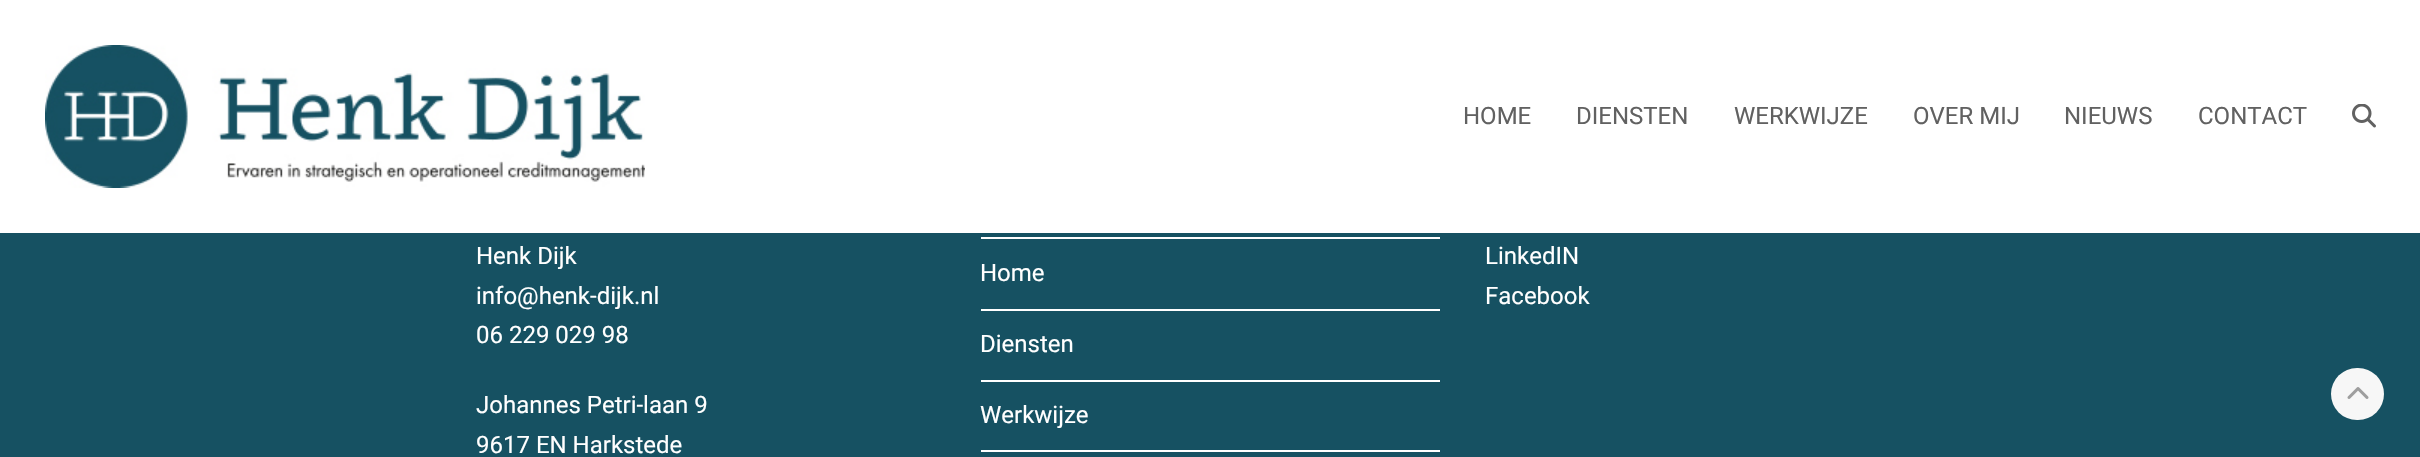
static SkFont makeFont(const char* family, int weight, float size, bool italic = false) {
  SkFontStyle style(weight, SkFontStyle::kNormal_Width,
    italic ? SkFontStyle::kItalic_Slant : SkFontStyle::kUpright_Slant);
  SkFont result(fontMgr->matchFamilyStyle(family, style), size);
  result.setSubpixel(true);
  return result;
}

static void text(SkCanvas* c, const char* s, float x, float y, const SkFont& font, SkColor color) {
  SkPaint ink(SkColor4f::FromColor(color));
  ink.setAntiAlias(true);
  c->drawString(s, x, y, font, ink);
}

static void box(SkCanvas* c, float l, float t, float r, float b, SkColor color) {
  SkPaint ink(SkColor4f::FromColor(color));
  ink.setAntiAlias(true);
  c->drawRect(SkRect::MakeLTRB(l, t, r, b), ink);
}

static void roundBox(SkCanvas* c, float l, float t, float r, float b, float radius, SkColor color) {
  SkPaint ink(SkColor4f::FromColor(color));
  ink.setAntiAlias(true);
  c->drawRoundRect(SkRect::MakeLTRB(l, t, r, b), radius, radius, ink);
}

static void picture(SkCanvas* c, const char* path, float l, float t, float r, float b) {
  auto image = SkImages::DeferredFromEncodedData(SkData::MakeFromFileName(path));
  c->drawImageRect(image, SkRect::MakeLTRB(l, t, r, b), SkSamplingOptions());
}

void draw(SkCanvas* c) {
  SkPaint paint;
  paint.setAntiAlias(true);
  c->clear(0xff165162);
  box(c, 0, 0, 2420, 233, 0xffffffff);
  picture(c, "img_01.png", 45, 45, 645, 188);
  SkFont face1 = makeFont("Roboto", 400, 24);
  text(c, "HOME", 1463, 124, face1, 0xff616161);
  text(c, "DIENSTEN", 1576, 124, face1, 0xff616161);
  text(c, "WERKWIJZE", 1734, 124, face1, 0xff616161);
  text(c, "OVER MIJ", 1913, 124, face1, 0xff616161);
  text(c, "NIEUWS", 2064, 124, face1, 0xff616161);
  text(c, "CONTACT", 2198, 124, face1, 0xff616161);
  picture(c, "img_02.png", 2352, 104, 2376, 128);
  text(c, "Henk Dijk", 476, 264, face1, 0xffffffff);
  text(c, "info@henk-dijk.nl", 476, 304, face1, 0xffffffff);
  text(c, "06 229 029 98", 476, 343, face1, 0xffffffff);
  text(c, "Johannes Petri-laan 9", 476, 413, face1, 0xffffffff);
  text(c, "9617 EN Harkstede", 476, 453, face1, 0xffffffff);
  box(c, 981, 237, 1440, 239, 0xffffffff);
  box(c, 981, 309, 1440, 311, 0xffffffff);
  text(c, "Home", 980, 281, face1, 0xffffffff);
  box(c, 981, 380, 1440, 382, 0xffffffff);
  text(c, "Diensten", 980, 352, face1, 0xffffffff);
  box(c, 981, 450, 1440, 452, 0xffffffff);
  text(c, "Werkwijze", 980, 423, face1, 0xffffffff);
  text(c, "LinkedIN", 1485, 264, face1, 0xffffffff);
  text(c, "Facebook", 1485, 304, face1, 0xffffffff);
  roundBox(c, 2331, 368, 2384, 420, 26, 0xfff7f7f7);
  picture(c, "img_03.png", 2347, 387, 2369, 399);
}
